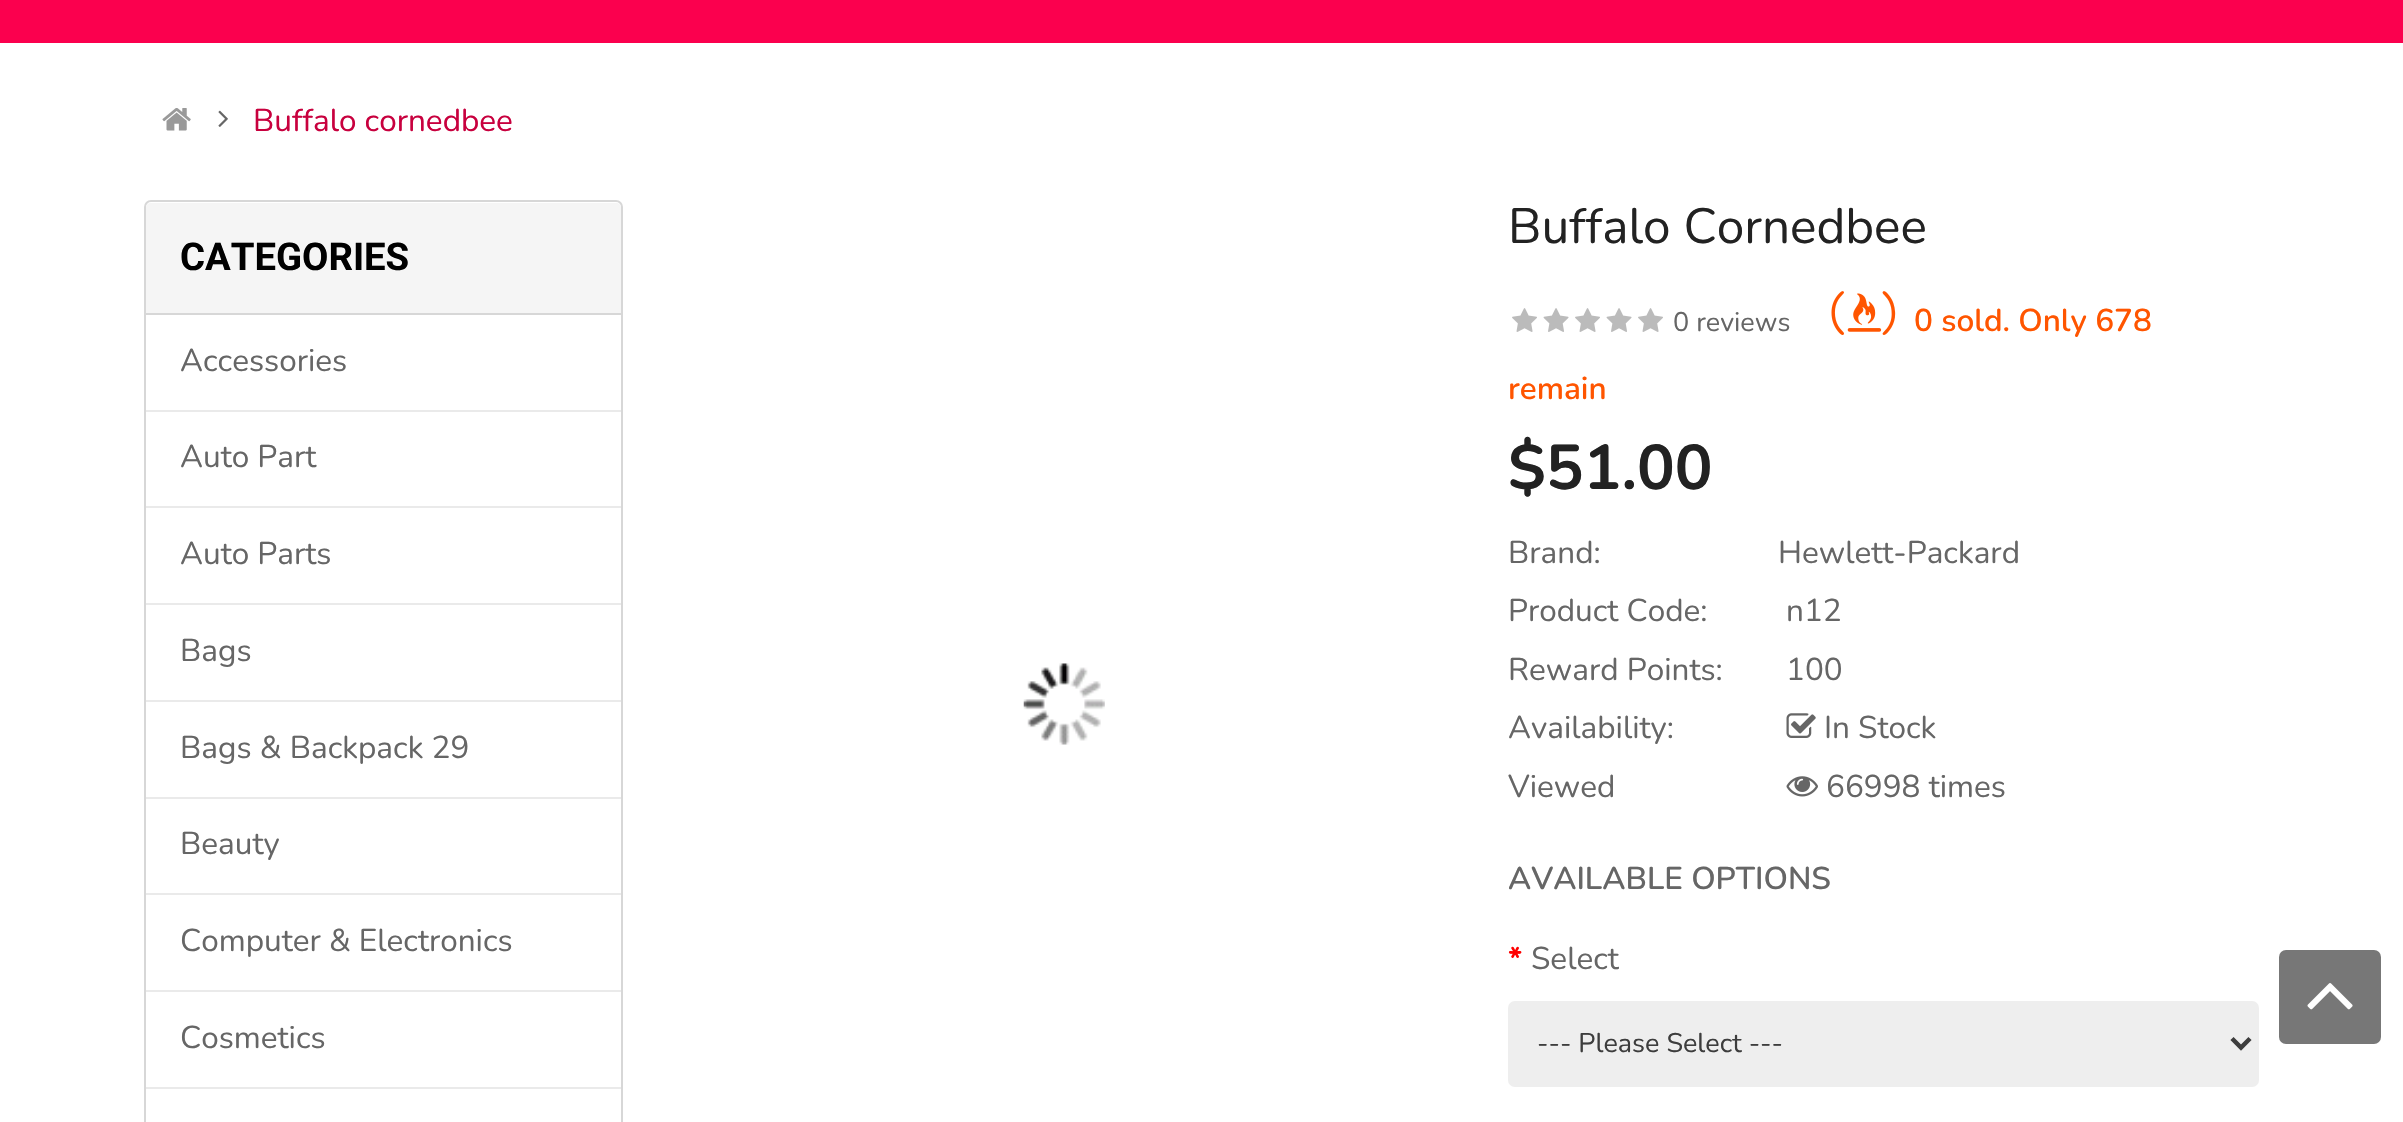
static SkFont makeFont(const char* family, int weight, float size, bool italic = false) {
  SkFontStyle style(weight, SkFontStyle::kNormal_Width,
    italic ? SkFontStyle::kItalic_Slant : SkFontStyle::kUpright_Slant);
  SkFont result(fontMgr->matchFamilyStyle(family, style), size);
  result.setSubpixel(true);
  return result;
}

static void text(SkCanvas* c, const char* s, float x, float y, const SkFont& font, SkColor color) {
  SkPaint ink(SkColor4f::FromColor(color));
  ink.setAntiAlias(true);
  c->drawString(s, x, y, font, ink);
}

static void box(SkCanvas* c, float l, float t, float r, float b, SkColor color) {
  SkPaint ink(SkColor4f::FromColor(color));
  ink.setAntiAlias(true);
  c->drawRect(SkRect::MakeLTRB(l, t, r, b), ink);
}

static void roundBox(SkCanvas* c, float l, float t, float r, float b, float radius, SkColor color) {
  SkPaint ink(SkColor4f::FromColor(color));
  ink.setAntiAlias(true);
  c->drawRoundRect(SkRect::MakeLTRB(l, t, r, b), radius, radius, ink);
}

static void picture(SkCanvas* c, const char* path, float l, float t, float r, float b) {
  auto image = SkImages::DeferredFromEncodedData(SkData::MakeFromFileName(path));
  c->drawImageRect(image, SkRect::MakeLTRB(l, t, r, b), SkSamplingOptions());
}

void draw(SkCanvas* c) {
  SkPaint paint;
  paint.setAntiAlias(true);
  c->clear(0xffffffff);
  box(c, 0, 0, 2403, 43, 0xfffb004e);
  picture(c, "img_01.png", 162, 108, 191, 131);
  picture(c, "img_02.png", 218, 110, 228, 127);
  SkFont face1 = makeFont("Nunito", 400, 31.5f);
  text(c, "Buffalo cornedbee", 253, 131, face1, 0xffc8003e);
  paint.setStyle(SkPaint::kStroke_Style);
  paint.setStrokeWidth(2);
  paint.setColor(0xffd7d7d7);
  c->drawRoundRect(SkRect::MakeLTRB(145, 201, 622, 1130), 6, 6, paint);
  paint.setStyle(SkPaint::kFill_Style);
  paint.setColor(0xfff5f5f5);
  c->drawPath(SkPathBuilder().moveTo(151, 203).lineTo(616, 203).cubicTo(619, 203, 621, 205, 621, 208).lineTo(621, 315).lineTo(146, 315).lineTo(146, 208).cubicTo(146, 205, 148, 203, 151, 203).close().detach(), paint);
  box(c, 146, 313, 621, 315, 0xffd7d7d7);
  SkFont face2 = makeFont("Roboto", 700, 38.25f);
  text(c, "CATEGORIES", 180, 270, face2, 0xff000000);
  box(c, 146, 410, 621, 412, 0xffeaeaea);
  text(c, "Accessories", 180, 371, face1, 0xff666666);
  box(c, 146, 506, 621, 508, 0xffeaeaea);
  text(c, "Auto Part", 180, 467, face1, 0xff666666);
  box(c, 146, 603, 621, 605, 0xffeaeaea);
  text(c, "Auto Parts", 180, 564, face1, 0xff666666);
  box(c, 146, 700, 621, 702, 0xffeaeaea);
  text(c, "Bags", 180, 661, face1, 0xff666666);
  box(c, 146, 797, 621, 799, 0xffeaeaea);
  text(c, "Bags & Backpack 29", 180, 758, face1, 0xff666666);
  box(c, 146, 893, 621, 895, 0xffeaeaea);
  text(c, "Beauty", 180, 854, face1, 0xff666666);
  box(c, 146, 990, 621, 992, 0xffeaeaea);
  text(c, "Computer & Electronics", 180, 951, face1, 0xff666666);
  box(c, 146, 1087, 621, 1089, 0xffeaeaea);
  text(c, "Cosmetics", 180, 1048, face1, 0xff666666);
  picture(c, "img_03.png", 1023, 663, 1105, 745);
  SkFont face3 = makeFont("Nunito", 400, 49.5f);
  text(c, "Buffalo Cornedbee", 1508, 243, face3, 0xff222222);
  picture(c, "img_04.png", 1831, 291, 1896, 335);
  SkFont face4 = makeFont("Nunito", 600, 31.5f);
  text(c, "0 sold. Only 678", 1914, 331, face4, 0xffff5500);
  text(c, "remain", 1508, 399, face4, 0xffff5500);
  picture(c, "img_05.png", 1512, 308, 1537, 332);
  picture(c, "img_06.png", 1543, 308, 1569, 332);
  picture(c, "img_05.png", 1575, 308, 1600, 332);
  picture(c, "img_06.png", 1606, 308, 1632, 332);
  picture(c, "img_05.png", 1638, 308, 1663, 332);
  SkFont face5 = makeFont("Nunito", 400, 27);
  text(c, "0 reviews", 1673, 331, face5, 0xff666666);
  SkFont face6 = makeFont("Nunito", 700, 63);
  text(c, "$51.00", 1508, 489, face6, 0xff222222);
  text(c, "Brand:", 1508, 563, face1, 0xff666666);
  text(c, "Hewlett-Packard", 1778, 563, face1, 0xff666666);
  text(c, "Product Code:", 1508, 621, face1, 0xff666666);
  text(c, "n12", 1786, 621, face1, 0xff666666);
  text(c, "Reward Points:", 1508, 680, face1, 0xff666666);
  text(c, "100", 1786, 680, face1, 0xff666666);
  text(c, "Availability:", 1508, 738, face1, 0xff666666);
  picture(c, "img_07.png", 1786, 713, 1816, 738);
  text(c, "In Stock", 1824, 738, face1, 0xff666666);
  text(c, "Viewed", 1508, 797, face1, 0xff666666);
  picture(c, "img_08.png", 1786, 776, 1818, 797);
  text(c, "66998 times", 1826, 797, face1, 0xff666666);
  text(c, "AVAILABLE OPTIONS", 1508, 889, face4, 0xff666666);
  SkFont face7 = makeFont("Nunito", 700, 31.5f);
  text(c, "*", 1508, 969, face7, 0xffff0000);
  text(c, "Select", 1531, 969, face1, 0xff666666);
  roundBox(c, 1508, 1001, 2259, 1087, 7, 0xffeeeeee);
  paint.setStyle(SkPaint::kStroke_Style);
  paint.setStrokeWidth(4.5f);
  paint.setColor(0xff3d3d3d);
  c->drawPath(SkPathBuilder().moveTo(2232, 1038.5f).lineTo(2241, 1047.5f).lineTo(2250, 1038.5f).detach(), paint);
  text(c, "--- Please Select ---", 1537, 1052, face5, 0xff3d3d3d);
  roundBox(c, 2279, 950, 2381, 1044, 7, 0xff777777);
  picture(c, "img_09.png", 2307, 983, 2353, 1010);
}
